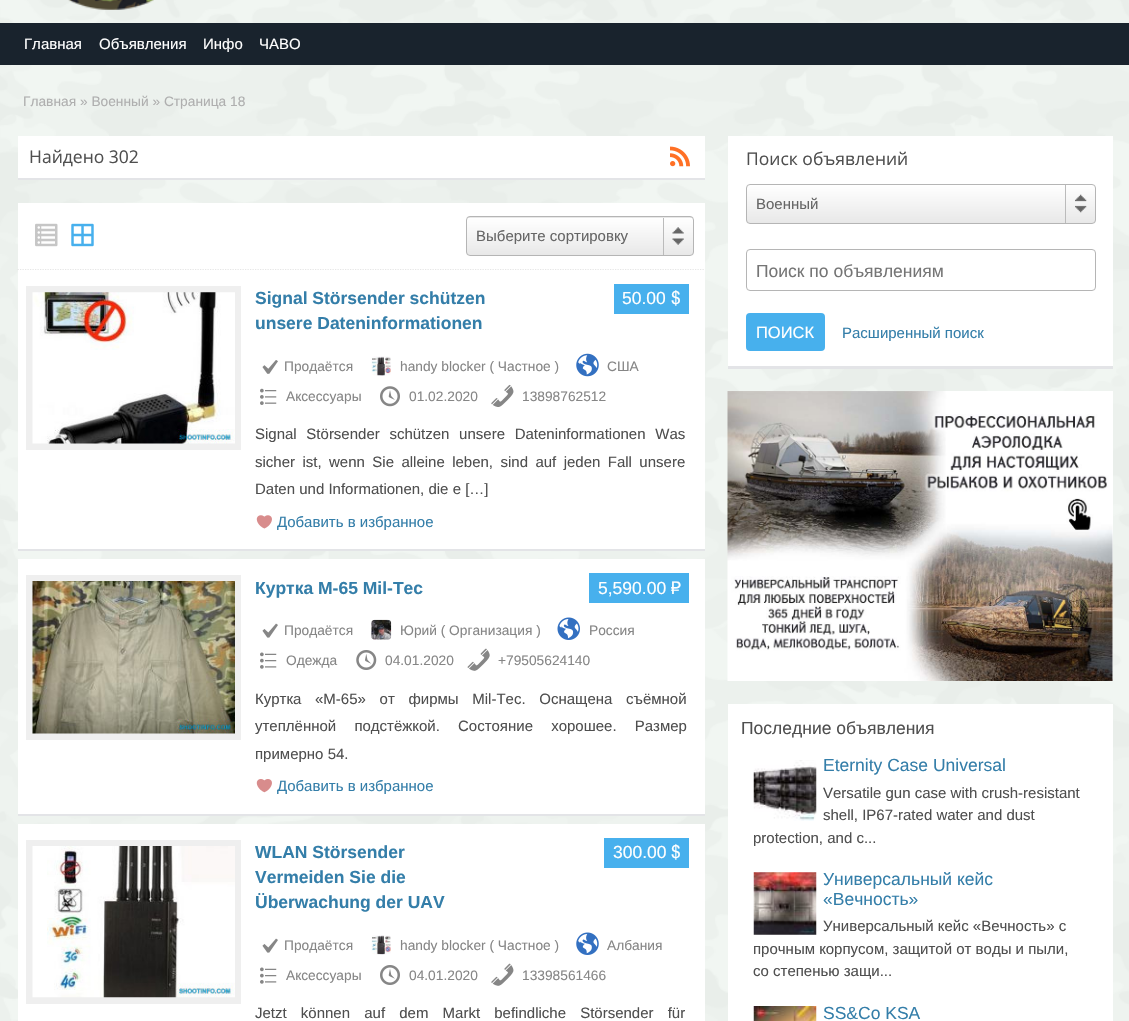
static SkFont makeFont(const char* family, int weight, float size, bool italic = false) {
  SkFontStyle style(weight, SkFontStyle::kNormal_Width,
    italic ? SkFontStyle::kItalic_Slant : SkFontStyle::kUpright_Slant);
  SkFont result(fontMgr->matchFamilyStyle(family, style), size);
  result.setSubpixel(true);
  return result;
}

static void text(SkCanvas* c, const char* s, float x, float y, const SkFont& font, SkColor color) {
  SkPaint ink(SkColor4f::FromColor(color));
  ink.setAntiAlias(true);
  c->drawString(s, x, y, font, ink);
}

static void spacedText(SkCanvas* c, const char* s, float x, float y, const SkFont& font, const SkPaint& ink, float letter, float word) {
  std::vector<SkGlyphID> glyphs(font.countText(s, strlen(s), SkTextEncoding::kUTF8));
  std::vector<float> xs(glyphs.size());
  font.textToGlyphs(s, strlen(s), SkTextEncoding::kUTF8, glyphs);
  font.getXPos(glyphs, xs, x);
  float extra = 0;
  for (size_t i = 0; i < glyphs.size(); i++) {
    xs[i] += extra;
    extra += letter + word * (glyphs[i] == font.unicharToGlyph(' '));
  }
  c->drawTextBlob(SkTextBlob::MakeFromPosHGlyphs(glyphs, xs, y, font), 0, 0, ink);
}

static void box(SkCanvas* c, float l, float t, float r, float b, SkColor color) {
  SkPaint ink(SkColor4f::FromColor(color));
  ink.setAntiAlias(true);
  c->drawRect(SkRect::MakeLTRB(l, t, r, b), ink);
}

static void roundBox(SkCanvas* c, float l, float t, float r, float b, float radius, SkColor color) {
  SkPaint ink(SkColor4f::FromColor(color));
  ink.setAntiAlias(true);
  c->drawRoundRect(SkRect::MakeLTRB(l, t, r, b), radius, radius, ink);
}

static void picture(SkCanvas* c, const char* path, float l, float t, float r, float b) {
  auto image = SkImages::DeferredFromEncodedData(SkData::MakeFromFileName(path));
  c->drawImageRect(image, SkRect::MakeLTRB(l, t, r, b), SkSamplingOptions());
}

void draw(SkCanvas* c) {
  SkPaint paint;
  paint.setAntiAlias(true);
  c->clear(0xfff3f8f4);
  picture(c, "img_01.png", 0, 0, 1129, 1021);
  picture(c, "img_02.png", 68, 0, 154, 10);
  box(c, 0, 23, 1129, 65, 0xff19232d);
  SkFont face1 = makeFont("Liberation Sans", 400, 15);
  text(c, "Главная", 24, 49, face1, 0xffffffff);
  text(c, "Объявления", 99, 49, face1, 0xffffffff);
  text(c, "Инфо", 203, 49, face1, 0xffffffff);
  text(c, "ЧАВО", 259, 49, face1, 0xffffffff);
  SkFont face2 = makeFont("Liberation Sans", 400, 13.75f);
  text(c, "Главная » Военный » Страница 18", 23, 106, face2, 0xffafafaf);
  box(c, 18, 178, 705, 180, 0xffe3e4e7);
  box(c, 18, 136, 705, 178, 0xffffffff);
  SkFont face3 = makeFont("Open Sans", 400, 17.5f);
  text(c, "Найдено 302", 29, 163, face3, 0xff4f4f4f);
  picture(c, "img_03.png", 670, 146, 690, 167);
  box(c, 18, 269, 705, 270, 0xffffffff);
  paint.setStyle(SkPaint::kStroke_Style);
  paint.setStrokeWidth(1.2f);
  paint.setColor(0xffe6e6e6);
  paint.setPathEffect(SkDashPathEffect::Make({{1.25f, 1.25f}}, 0));
  c->drawPath(SkPathBuilder().moveTo(17.5f, 269.5f).lineTo(705, 269.5f).detach(), paint);
  paint.setPathEffect(nullptr);
  box(c, 18, 203, 705, 269, 0xffffffff);
  picture(c, "img_04.png", 35, 223, 58, 247);
  picture(c, "img_05.png", 71, 223, 94, 247);
  c->save();
  c->clipPath(SkPathBuilder().moveTo(470, 216).lineTo(690, 216).cubicTo(692, 216, 694, 218, 694, 220).lineTo(694, 252).cubicTo(694, 254, 692, 256, 690, 256).lineTo(470, 256).cubicTo(468, 256, 466, 254, 466, 252).lineTo(466, 220).cubicTo(466, 218, 468, 216, 470, 216).close().detach(), true);
  paint.setStyle(SkPaint::kFill_Style);
  {
    const SkColor colors[] = {0xffffffff, 0xffe8e8e8};
    const float stops[] = {0, 1};
    const SkPoint ends[] = {{580, 180}, {580, 218}};
    paint.setShader(SkGradientShader::MakeLinear(ends, colors, stops, 2, SkTileMode::kClamp));
    paint.setAlpha(255);
  }
  c->drawRect(SkRect::MakeLTRB(466, 216, 694, 218), paint);
  {
    const SkColor colors[] = {0xffffffff, 0xffe8e8e8};
    const float stops[] = {0, 1};
    const SkPoint ends[] = {{580, 218}, {580, 255}};
    paint.setShader(SkGradientShader::MakeLinear(ends, colors, stops, 2, SkTileMode::kClamp));
    paint.setAlpha(255);
  }
  c->drawRect(SkRect::MakeLTRB(466, 218, 694, 255), paint);
  c->restore();
  paint.setStyle(SkPaint::kStroke_Style);
  paint.setStrokeWidth(1);
  paint.setShader(nullptr);
  paint.setColor(0xffb5b5b5);
  c->drawRoundRect(SkRect::MakeLTRB(466.5f, 216.5f, 693.5f, 255.5f), 3.5f, 3.5f, paint);
  text(c, "Выберите сортировку", 476, 241, face1, 0xff666666);
  picture(c, "img_06.png", 672, 227, 684, 245);
  box(c, 663, 218, 664, 255, 0xffbbbbbb);
  box(c, 18, 549, 705, 551, 0xffe3e4e7);
  box(c, 18, 270, 705, 549, 0xffffffff);
  box(c, 26, 286, 241, 450, 0xffefefef);
  picture(c, "img_07.png", 32, 292, 235, 444);
  SkFont face4 = makeFont("Liberation Sans", 700, 17.5f);
  text(c, "Signal Störsender schützen", 255, 304, face4, 0xff347ea9);
  text(c, "unsere Dateninformationen", 255, 329, face4, 0xff347ea9);
  box(c, 614, 284, 689, 314, 0xff47b0ed);
  SkFont face5 = makeFont("Liberation Sans", 400, 17.5f);
  text(c, "50.00", 622, 304, face5, 0xffffffff);
  SkFont face6 = makeFont("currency", 400, 17.5f);
  text(c, "$", 671, 304, face6, 0xffffffff);
  picture(c, "img_08.png", 262, 360, 278, 374);
  text(c, "Продаётся", 284, 371, face2, 0xff868686);
  picture(c, "img_09.png", 371, 356, 391, 376);
  text(c, "handy blocker ( Частное )", 400, 371, face2, 0xff868686);
  picture(c, "img_10.png", 576, 353, 599, 377);
  text(c, "США", 607, 371, face2, 0xff868686);
  picture(c, "img_11.png", 260, 388, 277, 405);
  text(c, "Аксессуары", 286, 401, face2, 0xff868686);
  picture(c, "img_12.png", 380, 386, 400, 407);
  text(c, "01.02.2020", 409, 401, face2, 0xff868686);
  picture(c, "img_13.png", 491, 384, 514, 407);
  text(c, "13898762512", 522, 401, face2, 0xff868686);
  paint.setStyle(SkPaint::kFill_Style);
  paint.setColor(0xff4f4f4f);
  spacedText(c, "Signal Störsender schützen unsere Dateninformationen Was", 255, 439, face1, paint, 0, 5.5f);
  spacedText(c, "sicher ist, wenn Sie alleine leben, sind auf jeden Fall unsere", 255, 467, face1, paint, 0, 3.25f);
  text(c, "Daten und Informationen, die e […]", 255, 494, face1, 0xff4f4f4f);
  picture(c, "img_14.png", 256, 515, 272, 529);
  text(c, "Добавить в избранное", 277, 527, face1, 0xff347ea9);
  box(c, 18, 814, 705, 816, 0xffe3e4e7);
  box(c, 18, 559, 705, 814, 0xffffffff);
  box(c, 26, 575, 241, 740, 0xffefefef);
  picture(c, "img_15.png", 32, 581, 235, 734);
  text(c, "Куртка М-65 Mil-Tec", 255, 594, face4, 0xff347ea9);
  box(c, 589, 573, 689, 603, 0xff47b0ed);
  text(c, "5,590.00", 598, 594, face5, 0xffffffff);
  text(c, "₽", 671, 594, face6, 0xffffffff);
  picture(c, "img_16.png", 262, 623, 278, 638);
  text(c, "Продаётся", 284, 635, face2, 0xff868686);
  picture(c, "img_17.png", 371, 619, 392, 640);
  text(c, "Юрий ( Организация )", 400, 635, face2, 0xff868686);
  picture(c, "img_18.png", 557, 617, 580, 640);
  text(c, "Россия", 589, 635, face2, 0xff868686);
  picture(c, "img_19.png", 260, 652, 277, 669);
  text(c, "Одежда", 286, 665, face2, 0xff868686);
  picture(c, "img_20.png", 356, 650, 377, 670);
  text(c, "04.01.2020", 385, 665, face2, 0xff868686);
  picture(c, "img_21.png", 467, 648, 490, 671);
  text(c, "+79505624140", 498, 665, face2, 0xff868686);
  spacedText(c, "Куртка «М-65» от фирмы Mil-Tec. Оснащена съёмной", 255, 704, face1, paint, 0, 9.5f);
  spacedText(c, "утеплённой подстёжкой. Состояние хорошее. Размер", 255, 731, face1, paint, 0, 14);
  text(c, "примерно 54.", 255, 759, face1, 0xff4f4f4f);
  picture(c, "img_22.png", 256, 779, 272, 793);
  text(c, "Добавить в избранное", 277, 791, face1, 0xff347ea9);
  box(c, 18, 824, 705, 1021, 0xffffffff);
  box(c, 26, 840, 241, 1004, 0xffefefef);
  picture(c, "img_23.png", 32, 846, 235, 998);
  text(c, "WLAN Störsender", 255, 858, face4, 0xff347ea9);
  text(c, "Vermeiden Sie die", 255, 883, face4, 0xff347ea9);
  text(c, "Überwachung der UAV", 255, 908, face4, 0xff347ea9);
  box(c, 604, 838, 689, 868, 0xff47b0ed);
  text(c, "300.00", 613, 858, face5, 0xffffffff);
  text(c, "$", 671, 858, face6, 0xffffffff);
  picture(c, "img_16.png", 262, 938, 278, 953);
  text(c, "Продаётся", 284, 950, face2, 0xff868686);
  picture(c, "img_24.png", 371, 935, 391, 955);
  text(c, "handy blocker ( Частное )", 400, 950, face2, 0xff868686);
  picture(c, "img_25.png", 576, 932, 599, 955);
  text(c, "Албания", 607, 950, face2, 0xff868686);
  picture(c, "img_19.png", 260, 967, 277, 984);
  text(c, "Аксессуары", 286, 980, face2, 0xff868686);
  picture(c, "img_26.png", 380, 965, 400, 985);
  text(c, "04.01.2020", 409, 980, face2, 0xff868686);
  picture(c, "img_27.png", 491, 963, 514, 986);
  text(c, "13398561466", 522, 980, face2, 0xff868686);
  spacedText(c, "Jetzt können auf dem Markt befindliche Störsender für", 255, 1018, face1, paint, 0, 10);
  paint.setColor(0xffe3e4e7);
  c->drawPath(SkPathBuilder().moveTo(728, 366).lineTo(728, 369).lineTo(1113, 369).lineTo(1113, 139).lineTo(1112, 139).lineTo(1112, 366).close().detach(), paint);
  box(c, 728, 136, 1113, 366, 0xffffffff);
  text(c, "Поиск объявлений", 746, 165, face3, 0xff4f4f4f);
  c->save();
  c->clipPath(SkPathBuilder().moveTo(750, 184).lineTo(1092, 184).cubicTo(1094, 184, 1096, 186, 1096, 188).lineTo(1096, 220).cubicTo(1096, 222, 1094, 224, 1092, 224).lineTo(750, 224).cubicTo(748, 224, 746, 222, 746, 220).lineTo(746, 188).cubicTo(746, 186, 748, 184, 750, 184).close().detach(), true);
  {
    const SkColor colors[] = {0xffffffff, 0xffe8e8e8};
    const float stops[] = {0, 1};
    const SkPoint ends[] = {{921, 185}, {921, 223}};
    paint.setShader(SkGradientShader::MakeLinear(ends, colors, stops, 2, SkTileMode::kClamp));
    paint.setAlpha(255);
  }
  c->drawRect(SkRect::MakeLTRB(746, 185, 1096, 223), paint);
  c->restore();
  paint.setStyle(SkPaint::kStroke_Style);
  paint.setShader(nullptr);
  paint.setColor(0xffb5b5b5);
  c->drawRoundRect(SkRect::MakeLTRB(746.5f, 184.5f, 1095.5f, 223.5f), 3.5f, 3.5f, paint);
  text(c, "Военный", 756, 209, face1, 0xff666666);
  picture(c, "img_28.png", 1075, 194, 1087, 213);
  box(c, 1065, 185, 1066, 223, 0xffbbbbbb);
  c->drawRoundRect(SkRect::MakeLTRB(746.5f, 249.5f, 1095.5f, 290.5f), 3.5f, 3.5f, paint);
  text(c, "Поиск по объявлениям", 756, 277, face5, 0xff757575);
  roundBox(c, 746, 313, 825, 351, 4, 0xff47b0ed);
  SkFont face7 = makeFont("Liberation Sans", 400, 16.5f);
  text(c, "ПОИСК", 756, 338, face7, 0xffffffff);
  text(c, "Расширенный поиск", 842, 338, face1, 0xff347ea9);
  paint.setStyle(SkPaint::kFill_Style);
  paint.setColor(0xffe3e4e7);
  c->drawPath(SkPathBuilder().moveTo(728, 679).lineTo(728, 681).lineTo(1113, 681).lineTo(1113, 394).lineTo(1112, 394).lineTo(1112, 679).close().detach(), paint);
  box(c, 1112, 391, 1113, 679, 0xffffffff);
  picture(c, "img_29.png", 727, 391, 1113, 681);
  box(c, 728, 704, 1113, 1021, 0xffffffff);
  text(c, "Последние объявления", 741, 734, face5, 0xff4f4f4f);
  picture(c, "img_30.png", 753, 760, 817, 821);
  text(c, "Eternity Case Universal", 823, 771, face5, 0xff347ea9);
  text(c, "Versatile gun case with crush-resistant", 823, 798, face1, 0xff4f4f4f);
  text(c, "shell, IP67-rated water and dust", 823, 820, face1, 0xff4f4f4f);
  text(c, "protection, and c...", 753, 843, face1, 0xff4f4f4f);
  picture(c, "img_31.png", 753, 872, 817, 935);
  text(c, "Универсальный кейс", 823, 885, face5, 0xff347ea9);
  text(c, "«Вечность»", 823, 905, face5, 0xff347ea9);
  text(c, "Универсальный кейс «Вечность» с", 823, 931, face1, 0xff4f4f4f);
  text(c, "прочным корпусом, защитой от воды и пыли,", 753, 954, face1, 0xff4f4f4f);
  text(c, "со степенью защи...", 753, 976, face1, 0xff4f4f4f);
  picture(c, "img_32.png", 753, 1006, 817, 1021);
  text(c, "SS&Co KSA", 823, 1019, face5, 0xff347ea9);
}
